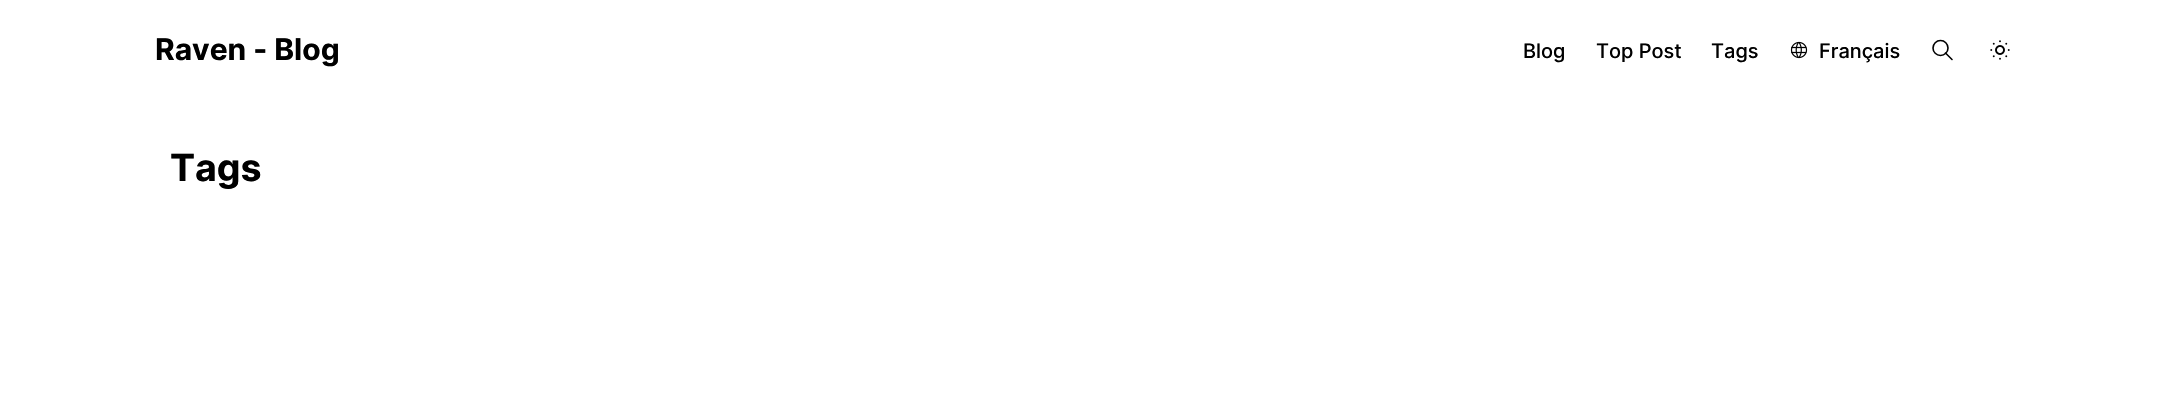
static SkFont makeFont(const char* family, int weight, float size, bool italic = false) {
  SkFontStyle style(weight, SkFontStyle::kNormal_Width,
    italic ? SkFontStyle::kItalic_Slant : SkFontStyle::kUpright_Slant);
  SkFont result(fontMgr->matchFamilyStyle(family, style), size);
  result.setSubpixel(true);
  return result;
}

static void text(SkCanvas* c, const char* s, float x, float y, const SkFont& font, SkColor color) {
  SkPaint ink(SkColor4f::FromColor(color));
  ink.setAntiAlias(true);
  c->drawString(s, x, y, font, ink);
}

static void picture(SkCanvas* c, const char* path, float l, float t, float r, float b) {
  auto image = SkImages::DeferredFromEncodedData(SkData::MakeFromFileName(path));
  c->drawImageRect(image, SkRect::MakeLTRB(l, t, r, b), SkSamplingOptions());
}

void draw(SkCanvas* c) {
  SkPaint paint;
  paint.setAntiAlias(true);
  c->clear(0xffffffff);
  SkFont face1 = makeFont("Inter", 700, 30);
  text(c, "Raven - Blog", 155, 60, face1, 0xff000000);
  SkFont face2 = makeFont("Inter", 500, 20);
  text(c, "Blog", 1523, 58, face2, 0xff000000);
  text(c, "Top Post", 1596, 58, face2, 0xff000000);
  text(c, "Tags", 1711, 58, face2, 0xff000000);
  picture(c, "img_01.png", 1790, 41, 1808, 59);
  text(c, "Français", 1819, 58, face2, 0xff000000);
  paint.setStyle(SkPaint::kStroke_Style);
  paint.setStrokeWidth(1.6f);
  paint.setColor(0xff000000);
  c->drawCircle(1940.5f, 48, 7.5f, paint);
  paint.setStrokeCap(SkPaint::kRound_Cap);
  paint.setStrokeJoin(SkPaint::kRound_Join);
  c->drawPath(SkPathBuilder().moveTo(1952, 59.5f).lineTo(1945.5f, 53).detach(), paint);
  picture(c, "img_02.png", 1990, 40, 2010, 60);
  SkFont face3 = makeFont("Inter", 700, 37.5f);
  text(c, "Tags", 170, 181, face3, 0xff000000);
}
